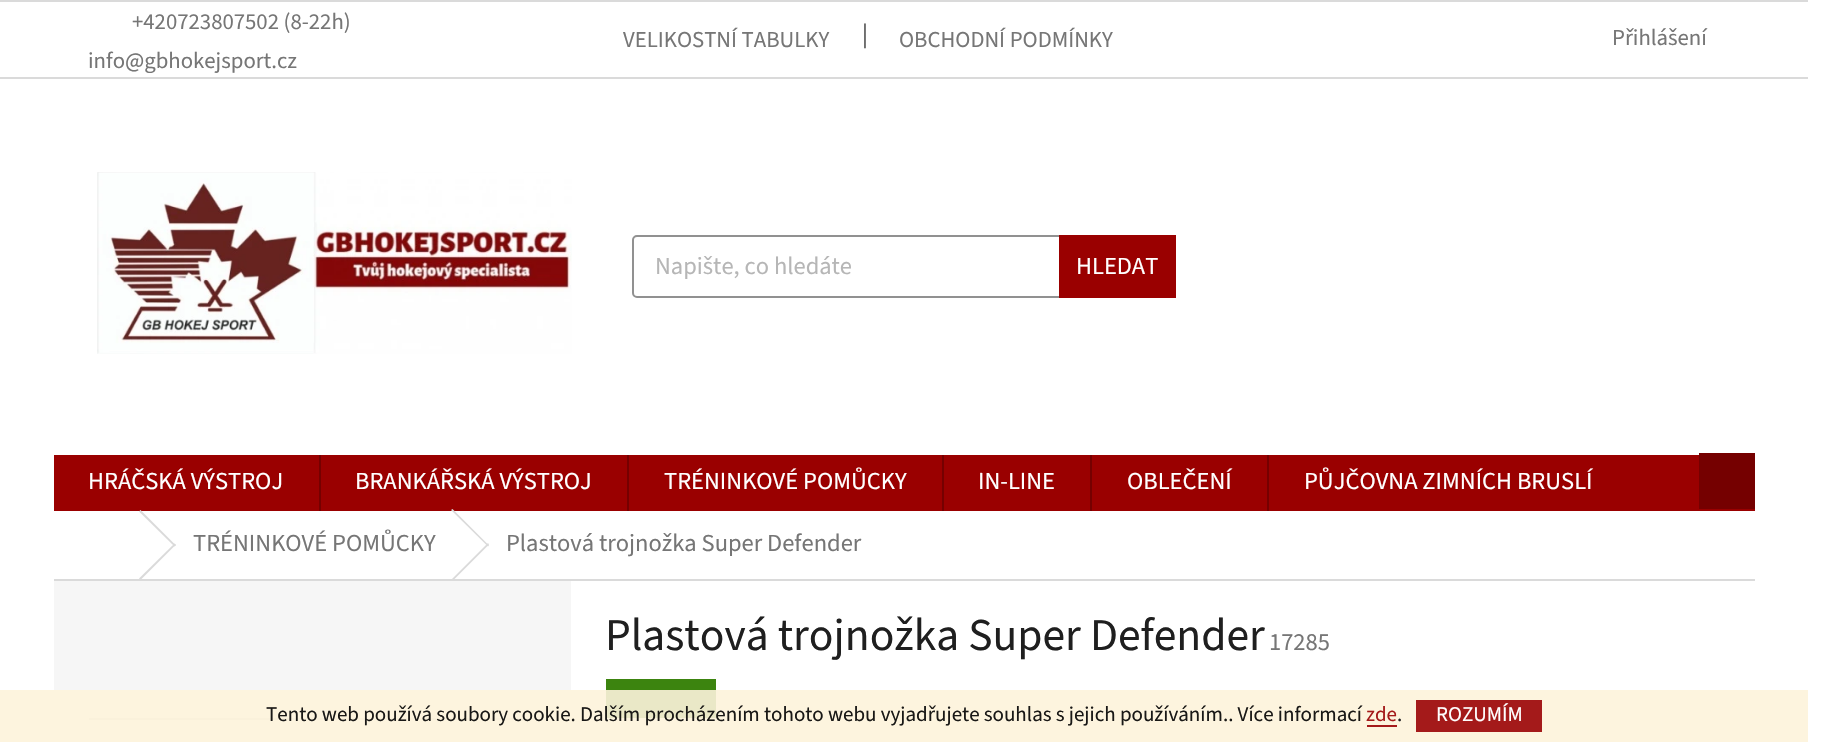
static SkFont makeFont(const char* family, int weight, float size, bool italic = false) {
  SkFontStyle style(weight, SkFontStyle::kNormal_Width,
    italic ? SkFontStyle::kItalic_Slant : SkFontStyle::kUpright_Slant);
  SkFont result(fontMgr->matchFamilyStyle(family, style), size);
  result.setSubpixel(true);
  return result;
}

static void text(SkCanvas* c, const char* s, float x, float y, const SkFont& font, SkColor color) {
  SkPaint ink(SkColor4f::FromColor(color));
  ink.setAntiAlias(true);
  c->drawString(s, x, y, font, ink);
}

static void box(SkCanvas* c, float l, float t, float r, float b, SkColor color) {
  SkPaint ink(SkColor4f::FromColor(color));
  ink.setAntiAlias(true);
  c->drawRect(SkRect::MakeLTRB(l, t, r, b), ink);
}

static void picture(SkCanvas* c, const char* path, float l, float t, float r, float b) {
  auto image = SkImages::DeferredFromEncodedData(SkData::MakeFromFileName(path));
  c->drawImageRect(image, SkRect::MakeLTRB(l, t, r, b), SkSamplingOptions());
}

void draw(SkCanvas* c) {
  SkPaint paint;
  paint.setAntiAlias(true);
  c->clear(0xffffffff);
  box(c, 0, 0, 1808, 2, 0xffdadada);
  box(c, 0, 77, 1808, 79, 0xffdadada);
  SkFont face1 = makeFont("Source Sans 3", 400, 22.75f);
  text(c, "+420723807502 (8-22h)", 132, 29, face1, 0xff767676);
  text(c, "info@gbhokejsport.cz", 88, 68, face1, 0xff767676);
  text(c, "VELIKOSTNÍ TABULKY", 623, 47, face1, 0xff767676);
  SkFont face2 = makeFont("Source Sans 3", 400, 24.5f);
  text(c, "|", 862, 42, face2, 0xff4d4d4d);
  text(c, "OBCHODNÍ PODMÍNKY", 899, 47, face1, 0xff767676);
  text(c, "Přihlášení", 1612, 45, face1, 0xff767676);
  picture(c, "img_01.png", 97, 172, 572, 354);
  paint.setStyle(SkPaint::kStroke_Style);
  paint.setStrokeWidth(2);
  paint.setColor(0xff919191);
  c->drawRoundRect(SkRect::MakeLTRB(633, 236, 1175, 297), 4, 4, paint);
  text(c, "Napište, co hledáte", 655, 274, face2, 0xffb6b6b6);
  box(c, 1059, 235, 1176, 298, 0xff9a0000);
  text(c, "HLEDAT", 1076, 274, face2, 0xffffffff);
  box(c, 54, 455, 1755, 511, 0xff9a0000);
  text(c, "HRÁČSKÁ VÝSTROJ", 88, 489, face2, 0xffffffff);
  box(c, 319, 455, 321, 511, 0xff750000);
  text(c, "BRANKÁŘSKÁ VÝSTROJ", 355, 489, face2, 0xffffffff);
  box(c, 627, 455, 629, 511, 0xff750000);
  text(c, "TRÉNINKOVÉ POMŮCKY", 664, 489, face2, 0xffffffff);
  box(c, 942, 455, 944, 511, 0xff750000);
  text(c, "IN-LINE", 978, 489, face2, 0xffffffff);
  box(c, 1090, 455, 1092, 511, 0xff750000);
  text(c, "OBLEČENÍ", 1127, 489, face2, 0xffffffff);
  box(c, 1267, 455, 1269, 511, 0xff750000);
  text(c, "PŮJČOVNA ZIMNÍCH BRUSLÍ", 1304, 489, face2, 0xffffffff);
  box(c, 1699, 453, 1755, 509, 0xff750000);
  box(c, 54, 579, 1755, 581, 0xffdadada);
  paint.setStyle(SkPaint::kFill_Style);
  paint.setColor(0xffdadada);
  c->drawPath(SkPathBuilder().moveTo(139, 511.5f).lineTo(140.5f, 510).lineTo(176, 545.5f).lineTo(174.5f, 546.5f).close().detach(), paint);
  c->drawPath(SkPathBuilder().moveTo(174.5f, 543.5f).lineTo(176, 544.5f).lineTo(140.5f, 580).lineTo(139, 578.5f).close().detach(), paint);
  text(c, "TRÉNINKOVÉ POMŮCKY", 193, 551, face2, 0xff767676);
  c->drawPath(SkPathBuilder().moveTo(451, 510).lineTo(452.5f, 509).lineTo(489, 545.5f).lineTo(488, 546.5f).close().detach(), paint);
  c->drawPath(SkPathBuilder().moveTo(488, 543).lineTo(489, 544.5f).lineTo(452.5f, 581).lineTo(451, 580).close().detach(), paint);
  text(c, "Plastová trojnožka Super Defender", 506, 551, face2, 0xff767676);
  box(c, 54, 581, 571, 742, 0xfff6f6f6);
  box(c, 89, 718, 536, 720, 0xffdadada);
  SkFont face3 = makeFont("Source Sans 3", 400, 45.5f);
  text(c, "Plastová trojnožka Super Defender", 605, 650, face3, 0xff1f1f1f);
  text(c, "17285", 1269, 650, face2, 0xff767676);
  box(c, 606, 679, 716, 718, 0xff3c840f);
  box(c, 0, 690, 1808, 742, 0xe6fdf3da);
  SkFont face4 = makeFont("Source Sans 3", 400, 21);
  text(c, "Tento web používá soubory cookie. Dalším procházením tohoto webu vyjadřujete souhlas s jejich používáním.. Více informací", 266, 721, face4, 0xff191816);
  text(c, "zde", 1366, 721, face4, 0xffa41a1a);
  box(c, 1367, 725, 1397, 727, 0xffa41a1a);
  text(c, ".", 1397, 721, face4, 0xff1f1f1f);
  box(c, 1416, 700, 1542, 732, 0xffa41a1a);
  text(c, "ROZUMÍM", 1436, 721, face4, 0xffffffff);
}
